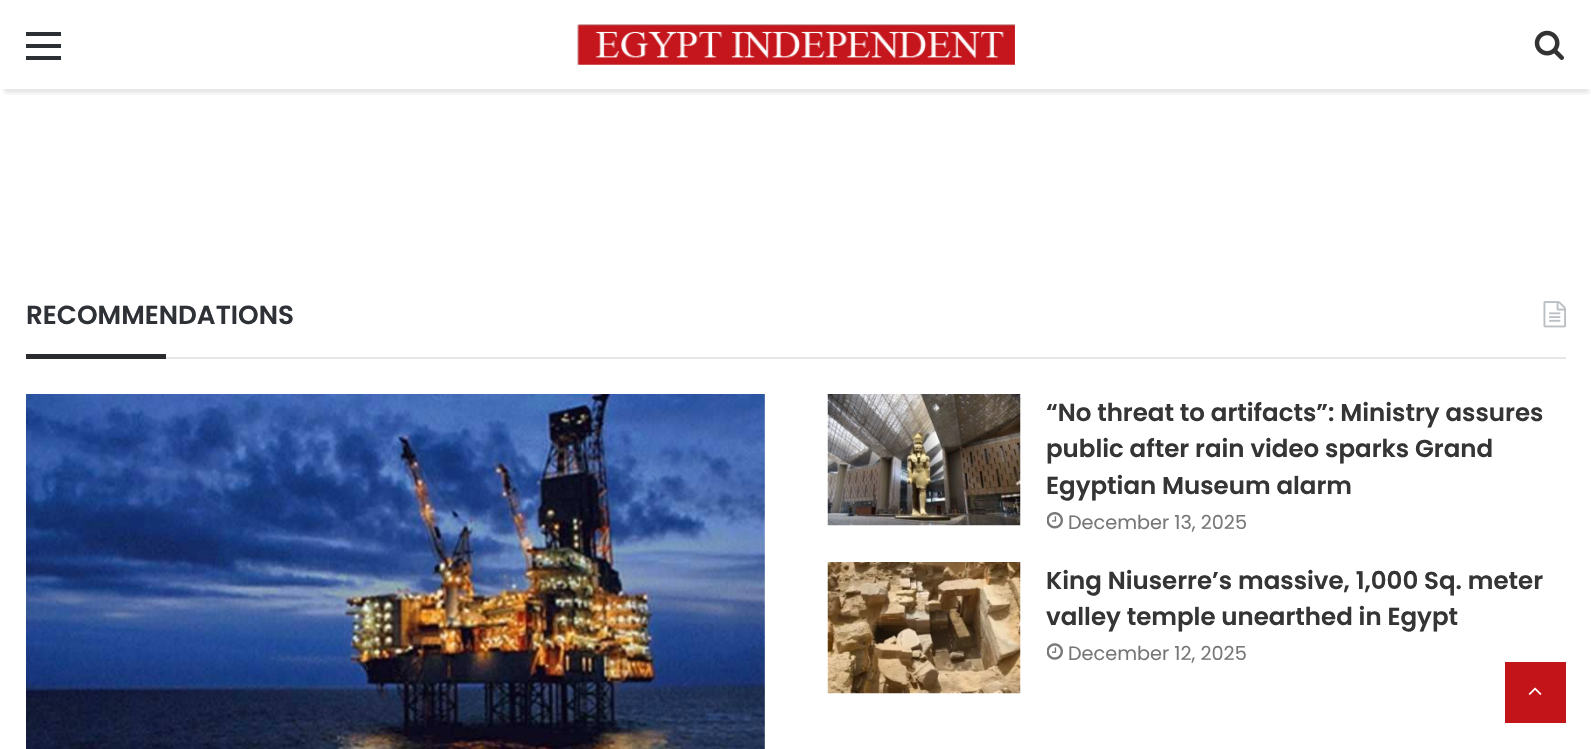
static SkFont makeFont(const char* family, int weight, float size, bool italic = false) {
  SkFontStyle style(weight, SkFontStyle::kNormal_Width,
    italic ? SkFontStyle::kItalic_Slant : SkFontStyle::kUpright_Slant);
  SkFont result(fontMgr->matchFamilyStyle(family, style), size);
  result.setSubpixel(true);
  return result;
}

static void text(SkCanvas* c, const char* s, float x, float y, const SkFont& font, SkColor color) {
  SkPaint ink(SkColor4f::FromColor(color));
  ink.setAntiAlias(true);
  c->drawString(s, x, y, font, ink);
}

static void box(SkCanvas* c, float l, float t, float r, float b, SkColor color) {
  SkPaint ink(SkColor4f::FromColor(color));
  ink.setAntiAlias(true);
  c->drawRect(SkRect::MakeLTRB(l, t, r, b), ink);
}

static void picture(SkCanvas* c, const char* path, float l, float t, float r, float b) {
  auto image = SkImages::DeferredFromEncodedData(SkData::MakeFromFileName(path));
  c->drawImageRect(image, SkRect::MakeLTRB(l, t, r, b), SkSamplingOptions());
}

void draw(SkCanvas* c) {
  SkPaint paint;
  paint.setAntiAlias(true);
  c->clear(0xffffffff);
  c->save();
  c->clipRect(SkRect::MakeLTRB(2, 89, 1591, 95));
  paint.setColor(0x1a000000);
  paint.setMaskFilter(SkMaskFilter::MakeBlur(kNormal_SkBlurStyle, 2));
  c->drawRect(SkRect::MakeLTRB(4, 11, 1589, 93), paint);
  paint.setMaskFilter(nullptr);
  c->restore();
  box(c, 26, 44, 61, 48, 0xff2c2f34);
  box(c, 26, 32, 61, 36, 0xff2c2f34);
  box(c, 26, 56, 61, 60, 0xff2c2f34);
  picture(c, "img_01.png", 577, 24, 1015, 65);
  picture(c, "img_02.png", 1534, 30, 1564, 60);
  box(c, 166, 357, 1566, 359, 0xffe6e6e6);
  SkFont face1 = makeFont("Poppins", 600, 26.25f);
  text(c, "RECOMMENDATIONS", 26, 324, face1, 0xff2e3136);
  picture(c, "img_03.png", 1543, 301, 1566, 328);
  box(c, 26, 354, 166, 359, 0xff292b2f);
  picture(c, "img_04.png", 26, 394, 765, 749);
  picture(c, "img_05.png", 827, 394, 1021, 526);
  SkFont face2 = makeFont("Poppins", 600, 24.5f);
  text(c, "“No threat to artifacts”: Ministry assures", 1046, 421, face2, 0xff353535);
  text(c, "public after rain video sparks Grand", 1046, 457, face2, 0xff353535);
  text(c, "Egyptian Museum alarm", 1046, 494, face2, 0xff353535);
  picture(c, "img_06.png", 1047, 512, 1063, 529);
  SkFont face3 = makeFont("Poppins", 400, 19.25f);
  text(c, "December 13, 2025", 1068, 529, face3, 0xff777777);
  picture(c, "img_07.png", 827, 562, 1021, 694);
  text(c, "King Niuserre’s massive, 1,000 Sq. meter", 1046, 589, face2, 0xff353535);
  text(c, "valley temple unearthed in Egypt", 1046, 625, face2, 0xff353535);
  picture(c, "img_08.png", 1047, 643, 1063, 660);
  text(c, "December 12, 2025", 1068, 660, face3, 0xff777777);
  box(c, 1505, 662, 1566, 723, 0xffc31419);
  picture(c, "img_09.png", 1528, 687, 1542, 695);
}
